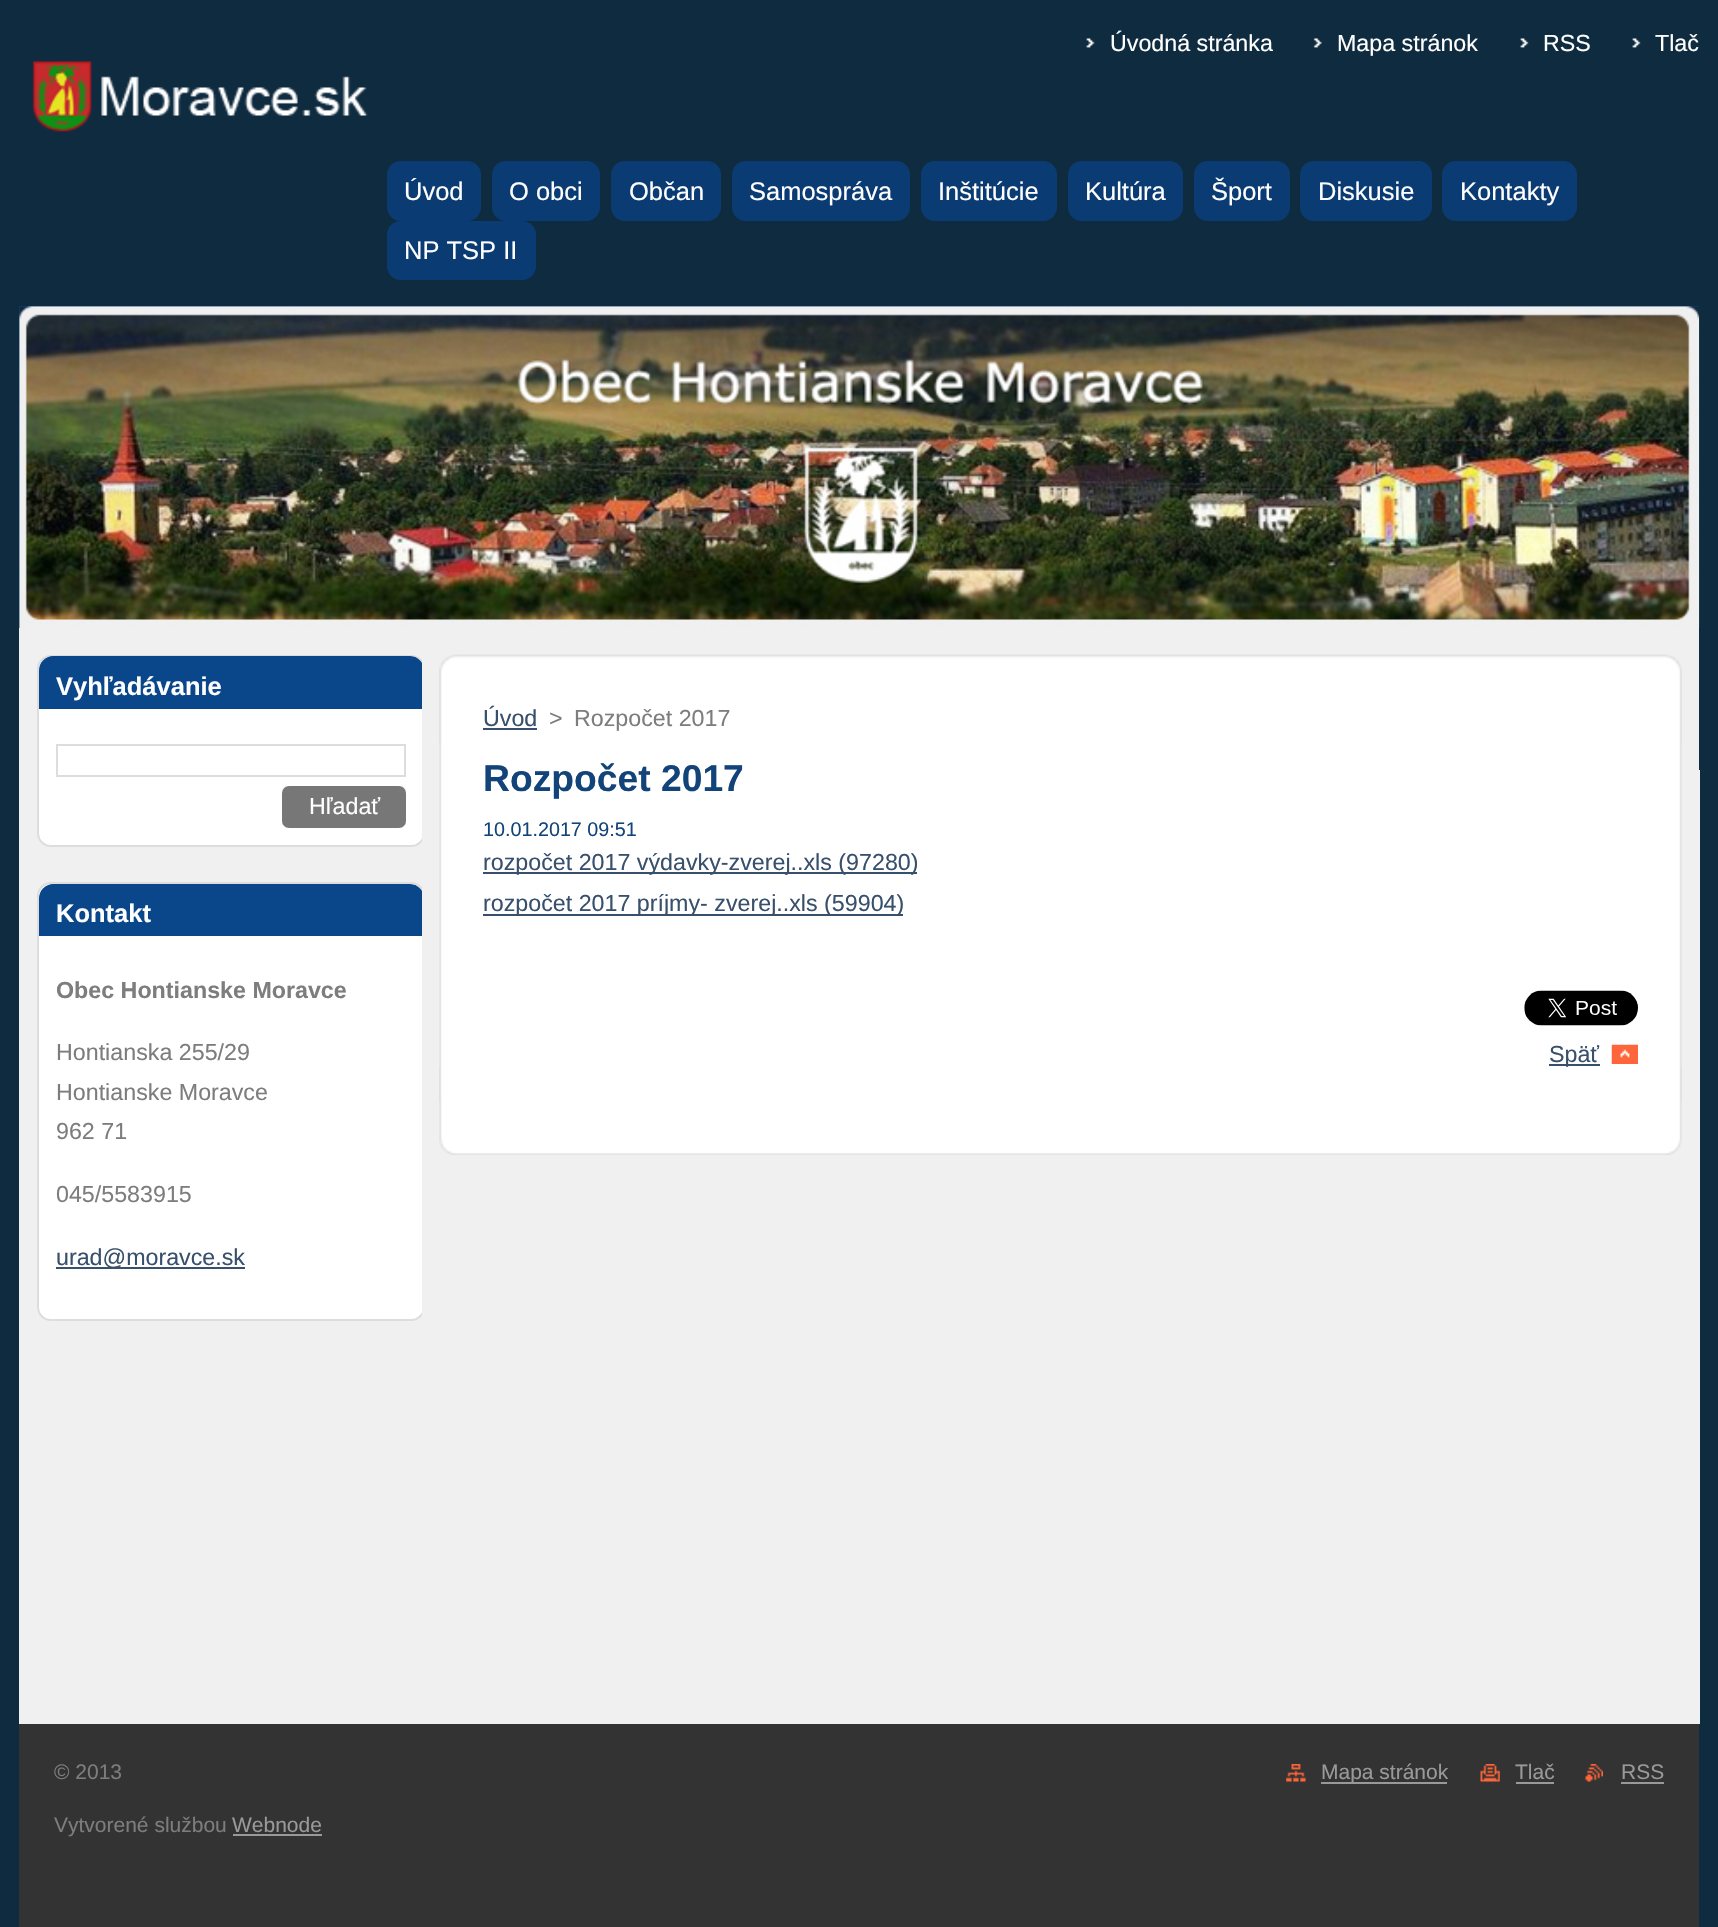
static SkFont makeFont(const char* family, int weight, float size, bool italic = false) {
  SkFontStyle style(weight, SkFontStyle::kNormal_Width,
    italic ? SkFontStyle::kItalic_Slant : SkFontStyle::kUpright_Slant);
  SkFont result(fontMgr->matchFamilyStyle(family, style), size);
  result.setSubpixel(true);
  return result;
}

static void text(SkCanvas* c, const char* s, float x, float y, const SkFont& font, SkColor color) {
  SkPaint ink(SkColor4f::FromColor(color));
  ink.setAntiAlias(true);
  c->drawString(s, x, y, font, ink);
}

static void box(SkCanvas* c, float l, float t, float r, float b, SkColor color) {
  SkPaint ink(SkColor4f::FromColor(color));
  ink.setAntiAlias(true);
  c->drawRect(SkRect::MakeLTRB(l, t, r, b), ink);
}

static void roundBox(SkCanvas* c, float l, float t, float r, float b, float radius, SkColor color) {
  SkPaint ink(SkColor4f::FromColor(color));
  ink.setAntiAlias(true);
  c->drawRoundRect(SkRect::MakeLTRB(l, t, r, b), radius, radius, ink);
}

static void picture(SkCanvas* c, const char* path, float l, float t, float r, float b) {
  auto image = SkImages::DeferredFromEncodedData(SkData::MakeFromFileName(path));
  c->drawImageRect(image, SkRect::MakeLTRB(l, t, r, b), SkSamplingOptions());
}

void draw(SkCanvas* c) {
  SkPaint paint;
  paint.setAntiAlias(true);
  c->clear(0xff0f2b40);
  box(c, 19, 770, 1700, 1724, 0xfff0f0f0);
  picture(c, "img_01.png", 1086, 38, 1095, 48);
  SkFont face1 = makeFont("Liberation Sans", 400, 23.25f);
  text(c, "Úvodná stránka", 1110, 51, face1, 0xffffffff);
  picture(c, "img_02.png", 1313, 38, 1322, 48);
  text(c, "Mapa stránok", 1337, 51, face1, 0xffffffff);
  picture(c, "img_03.png", 1520, 38, 1529, 48);
  text(c, "RSS", 1543, 51, face1, 0xffffffff);
  picture(c, "img_01.png", 1632, 38, 1641, 48);
  text(c, "Tlač", 1655, 51, face1, 0xffffffff);
  picture(c, "img_04.png", 32, 61, 368, 132);
  roundBox(c, 387, 161, 481, 221, 14, 0xff0a3b73);
  SkFont face2 = makeFont("Liberation Sans", 400, 25.5f);
  text(c, "Úvod", 404, 200, face2, 0xffffffff);
  roundBox(c, 492, 161, 600, 221, 14, 0xff0a3b73);
  text(c, "O obci", 509, 200, face2, 0xffffffff);
  roundBox(c, 611, 161, 721, 221, 14, 0xff0a3b73);
  text(c, "Občan", 629, 200, face2, 0xffffffff);
  roundBox(c, 732, 161, 910, 221, 14, 0xff0a3b73);
  text(c, "Samospráva", 749, 200, face2, 0xffffffff);
  roundBox(c, 921, 161, 1057, 221, 14, 0xff0a3b73);
  text(c, "Inštitúcie", 938, 200, face2, 0xffffffff);
  roundBox(c, 1068, 161, 1183, 221, 14, 0xff0a3b73);
  text(c, "Kultúra", 1085, 200, face2, 0xffffffff);
  roundBox(c, 1194, 161, 1290, 221, 14, 0xff0a3b73);
  text(c, "Šport", 1211, 200, face2, 0xffffffff);
  roundBox(c, 1300, 161, 1432, 221, 14, 0xff0a3b73);
  text(c, "Diskusie", 1318, 200, face2, 0xffffffff);
  roundBox(c, 1442, 161, 1577, 221, 14, 0xff0a3b73);
  text(c, "Kontakty", 1460, 200, face2, 0xffffffff);
  roundBox(c, 387, 221, 536, 280, 14, 0xff0a3b73);
  text(c, "NP TSP II", 404, 259, face2, 0xffffffff);
  box(c, 19, 306, 1699, 628, 0xff134479);
  picture(c, "img_05.png", 19, 306, 1700, 628);
  box(c, 19, 628, 1699, 770, 0xfff0f0f0);
  c->save();
  c->clipRect(SkRect::MakeLTRB(37, 655, 422, 1356));
  paint.setColor(0xffffffff);
  c->drawRoundRect(SkRect::MakeLTRB(38, 656, 424, 846), 13, 13, paint);
  paint.setStyle(SkPaint::kStroke_Style);
  paint.setStrokeWidth(2);
  paint.setColor(0xffdddddd);
  c->drawRoundRect(SkRect::MakeLTRB(38, 656, 424, 846), 13, 13, paint);
  c->restore();
  c->save();
  c->clipRect(SkRect::MakeLTRB(37, 655, 422, 1356));
  c->clipPath(SkPathBuilder().moveTo(51, 656).lineTo(412, 656).cubicTo(418.5f, 656, 424, 661.5f, 424, 668).lineTo(424, 833).cubicTo(424, 839.5f, 418.5f, 845, 412, 845).lineTo(51, 845).cubicTo(44.5f, 845, 39, 839.5f, 39, 833).lineTo(39, 668).cubicTo(39, 661.5f, 44.5f, 656, 51, 656).close().detach(), true);
  paint.setStyle(SkPaint::kFill_Style);
  paint.setColor(0xff0a468a);
  c->drawPath(SkPathBuilder().moveTo(53, 656).lineTo(410, 656).cubicTo(417.5f, 656, 424, 662.5f, 424, 670).lineTo(424, 709).lineTo(39, 709).lineTo(39, 670).cubicTo(39, 662.5f, 45.5f, 656, 53, 656).close().detach(), paint);
  c->restore();
  SkFont face3 = makeFont("Liberation Sans", 700, 25.5f);
  text(c, "Vyhľadávanie", 56, 695, face3, 0xffffffff);
  paint.setStyle(SkPaint::kStroke_Style);
  paint.setColor(0xffdddddd);
  c->drawRect(SkRect::MakeLTRB(57, 745, 405, 776), paint);
  roundBox(c, 282, 786, 406, 828, 7, 0xff777777);
  text(c, "Hľadať", 309, 814, face1, 0xffffffff);
  c->save();
  c->clipRect(SkRect::MakeLTRB(37, 655, 422, 1356));
  paint.setStyle(SkPaint::kFill_Style);
  paint.setColor(0xffffffff);
  c->drawRoundRect(SkRect::MakeLTRB(38, 883, 424, 1320), 13, 13, paint);
  paint.setStyle(SkPaint::kStroke_Style);
  paint.setColor(0xffdddddd);
  c->drawRoundRect(SkRect::MakeLTRB(38, 883, 424, 1320), 13, 13, paint);
  c->restore();
  c->save();
  c->clipRect(SkRect::MakeLTRB(37, 655, 422, 1356));
  c->clipPath(SkPathBuilder().moveTo(51, 884).lineTo(412, 884).cubicTo(418.5f, 884, 424, 889.5f, 424, 896).lineTo(424, 1308).cubicTo(424, 1314.5f, 418.5f, 1320, 412, 1320).lineTo(51, 1320).cubicTo(44.5f, 1320, 39, 1314.5f, 39, 1308).lineTo(39, 896).cubicTo(39, 889.5f, 44.5f, 884, 51, 884).close().detach(), true);
  paint.setStyle(SkPaint::kFill_Style);
  paint.setColor(0xff0a468a);
  c->drawPath(SkPathBuilder().moveTo(53, 884).lineTo(410, 884).cubicTo(417.5f, 884, 424, 890.5f, 424, 898).lineTo(424, 936).lineTo(39, 936).lineTo(39, 898).cubicTo(39, 890.5f, 45.5f, 884, 53, 884).close().detach(), paint);
  c->restore();
  text(c, "Kontakt", 56, 922, face3, 0xffffffff);
  SkFont face4 = makeFont("Liberation Sans", 700, 23.25f);
  text(c, "Obec Hontianske Moravce", 56, 998, face4, 0xff7d7d7d);
  text(c, "Hontianska 255/29", 56, 1060, face1, 0xff7d7d7d);
  text(c, "Hontianske Moravce", 56, 1100, face1, 0xff7d7d7d);
  text(c, "962 71", 56, 1139, face1, 0xff7d7d7d);
  text(c, "045/5583915", 56, 1202, face1, 0xff7d7d7d);
  box(c, 56, 1267, 245, 1269, 0xff38506c);
  text(c, "urad@moravce.sk", 56, 1265, face1, 0xff38506c);
  picture(c, "img_06.png", 439, 654, 1682, 742);
  picture(c, "img_07.png", 439, 1067, 1682, 1155);
  picture(c, "img_08.png", 439, 742, 1682, 1102);
  text(c, "Úvod", 483, 726, face1, 0xff38506c);
  box(c, 483, 728, 537, 730, 0xff38506c);
  text(c, ">", 549, 726, face1, 0xff7d7d7d);
  text(c, "Rozpočet 2017", 574, 726, face1, 0xff7d7d7d);
  SkFont face5 = makeFont("Liberation Sans", 700, 37.25f);
  text(c, "Rozpočet 2017", 483, 791, face5, 0xff134479);
  SkFont face6 = makeFont("Liberation Sans", 400, 19.75f);
  text(c, "10.01.2017 09:51", 483, 836, face6, 0xff134479);
  box(c, 483, 872, 917, 874, 0xff38506c);
  text(c, "rozpočet 2017 výdavky-zverej..xls (97280)", 483, 870, face1, 0xff38506c);
  box(c, 483, 914, 903, 916, 0xff38506c);
  text(c, "rozpočet 2017 príjmy- zverej..xls (59904)", 483, 911, face1, 0xff38506c);
  picture(c, "img_09.png", 1524, 990, 1638, 1026);
  picture(c, "img_10.png", 1611, 1044, 1638, 1064);
  box(c, 1549, 1064, 1600, 1066, 0xff38506c);
  text(c, "Späť", 1549, 1062, face1, 0xff38506c);
  box(c, 19, 1724, 1699, 1927, 0xff333333);
  SkFont face7 = makeFont("Liberation Sans", 400, 21);
  text(c, "© 2013", 54, 1779, face7, 0xff7d7d7d);
  text(c, "Vytvorené službou", 54, 1832, face7, 0xff7d7d7d);
  text(c, "Webnode", 232, 1832, face7, 0xff999999);
  box(c, 233, 1834, 322, 1836, 0xff999999);
  picture(c, "img_11.png", 1286, 1764, 1306, 1782);
  box(c, 1321, 1782, 1447, 1784, 0xff999999);
  text(c, "Mapa stránok", 1321, 1779, face7, 0xff999999);
  picture(c, "img_12.png", 1480, 1764, 1500, 1782);
  text(c, "Tlač", 1515, 1779, face7, 0xff999999);
  box(c, 1516, 1782, 1554, 1784, 0xff999999);
  picture(c, "img_13.png", 1585, 1764, 1603, 1782);
  text(c, "RSS", 1621, 1779, face7, 0xff999999);
  box(c, 1621, 1782, 1664, 1784, 0xff999999);
}
